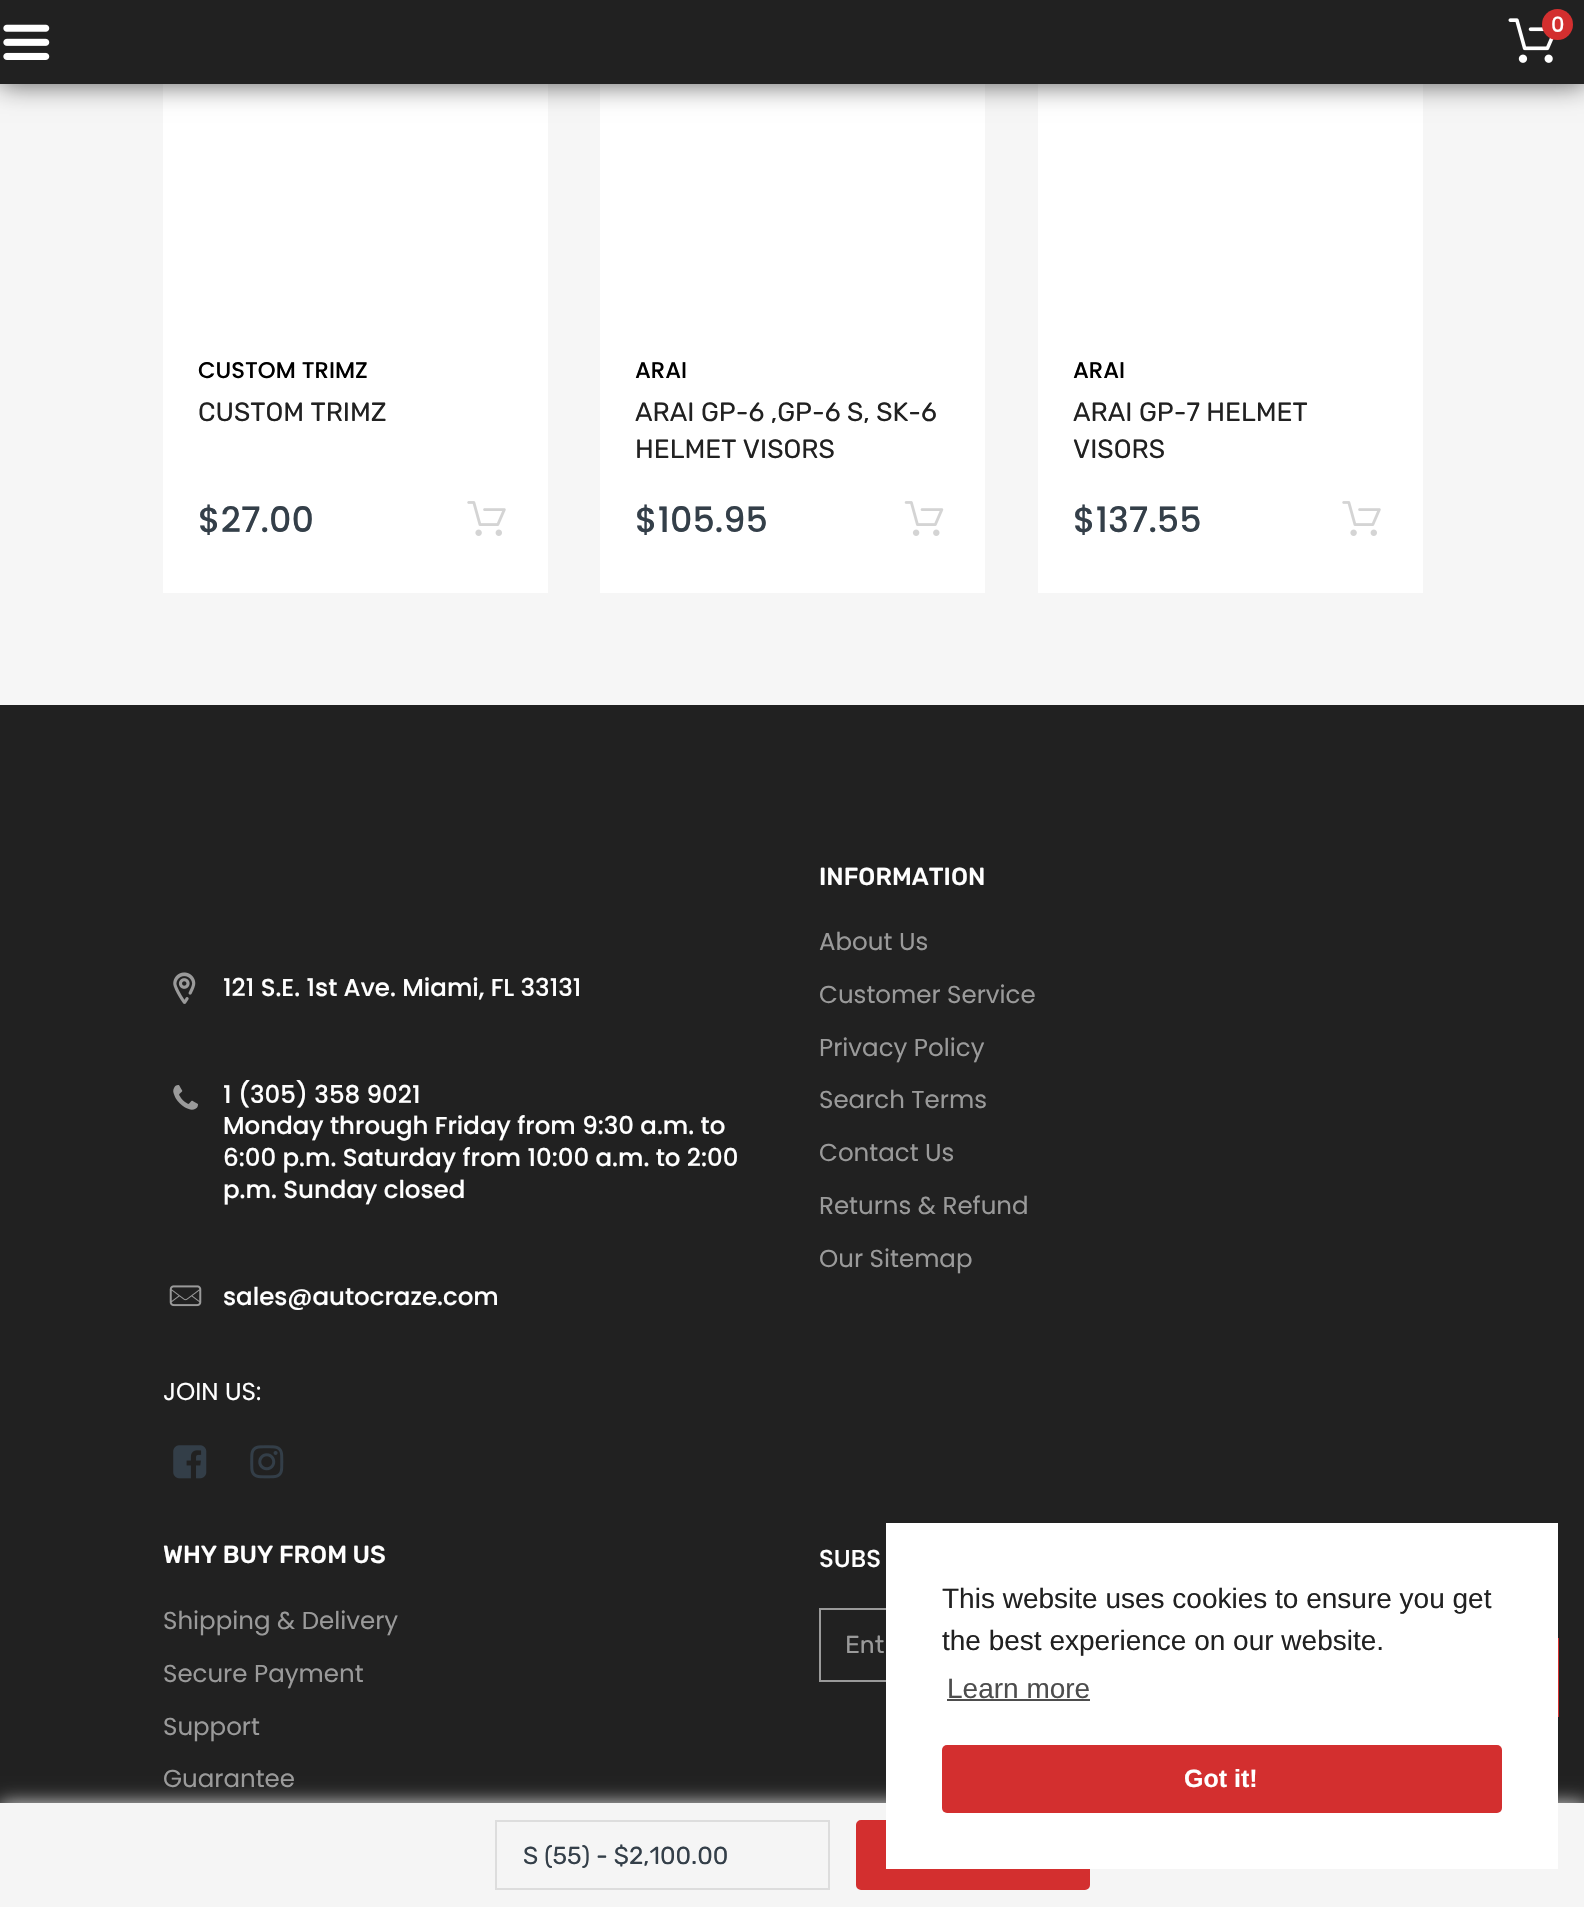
static SkFont makeFont(const char* family, int weight, float size, bool italic = false) {
  SkFontStyle style(weight, SkFontStyle::kNormal_Width,
    italic ? SkFontStyle::kItalic_Slant : SkFontStyle::kUpright_Slant);
  SkFont result(fontMgr->matchFamilyStyle(family, style), size);
  result.setSubpixel(true);
  return result;
}

static void text(SkCanvas* c, const char* s, float x, float y, const SkFont& font, SkColor color) {
  SkPaint ink(SkColor4f::FromColor(color));
  ink.setAntiAlias(true);
  c->drawString(s, x, y, font, ink);
}

static void box(SkCanvas* c, float l, float t, float r, float b, SkColor color) {
  SkPaint ink(SkColor4f::FromColor(color));
  ink.setAntiAlias(true);
  c->drawRect(SkRect::MakeLTRB(l, t, r, b), ink);
}

static void roundBox(SkCanvas* c, float l, float t, float r, float b, float radius, SkColor color) {
  SkPaint ink(SkColor4f::FromColor(color));
  ink.setAntiAlias(true);
  c->drawRoundRect(SkRect::MakeLTRB(l, t, r, b), radius, radius, ink);
}

static void picture(SkCanvas* c, const char* path, float l, float t, float r, float b) {
  auto image = SkImages::DeferredFromEncodedData(SkData::MakeFromFileName(path));
  c->drawImageRect(image, SkRect::MakeLTRB(l, t, r, b), SkSamplingOptions());
}

void draw(SkCanvas* c) {
  SkPaint paint;
  paint.setAntiAlias(true);
  c->clear(0xfff6f6f6);
  box(c, 163, 84, 548, 593, 0xffffffff);
  box(c, 600, 84, 985, 593, 0xffffffff);
  box(c, 1038, 84, 1423, 593, 0xffffffff);
  paint.setColor(0xa6000000);
  paint.setMaskFilter(SkMaskFilter::MakeBlur(kNormal_SkBlurStyle, 13));
  c->drawRect(SkRect::MakeLTRB(0, 0, 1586, 84), paint);
  paint.setMaskFilter(nullptr);
  box(c, 0, 0, 1584, 84, 0xff212121);
  picture(c, "img_01.png", 3, 24, 50, 60);
  picture(c, "img_02.png", 1508, 18, 1554, 63);
  paint.setColor(0xffd32f2f);
  c->drawCircle(1557.5f, 24.5f, 15.5f, paint);
  SkFont face1 = makeFont("Poppins", 500, 21);
  text(c, "0", 1551, 32, face1, 0xffffffff);
  SkFont face2 = makeFont("Poppins", 500, 22.75f);
  text(c, "CUSTOM TRIMZ", 198, 378, face2, 0xff000000);
  SkFont face3 = makeFont("Rubik", 400, 26.25f);
  text(c, "CUSTOM TRIMZ", 198, 421, face3, 0xff212121);
  SkFont face4 = makeFont("Poppins", 500, 35);
  text(c, "$27.00", 198, 532, face4, 0xff343f49);
  picture(c, "img_03.png", 467, 501, 506, 536);
  text(c, "ARAI", 635, 378, face2, 0xff000000);
  text(c, "ARAI GP-6 ,GP-6 S, SK-6", 635, 421, face3, 0xff212121);
  text(c, "HELMET VISORS", 635, 458, face3, 0xff212121);
  text(c, "$105.95", 635, 532, face4, 0xff343f49);
  picture(c, "img_04.png", 904, 501, 944, 536);
  text(c, "ARAI", 1073, 378, face2, 0xff000000);
  text(c, "ARAI GP-7 HELMET", 1073, 421, face3, 0xff212121);
  text(c, "VISORS", 1073, 458, face3, 0xff212121);
  text(c, "$137.55", 1073, 532, face4, 0xff343f49);
  picture(c, "img_03.png", 1342, 501, 1381, 536);
  box(c, 0, 705, 1584, 1803, 0xff212121);
  picture(c, "img_05.png", 173, 972, 196, 1004);
  SkFont face5 = makeFont("Poppins", 500, 24.5f);
  text(c, "121 S.E. 1st Ave. Miami, FL 33131", 223, 996, face5, 0xffffffff);
  picture(c, "img_06.png", 173, 1085, 198, 1110);
  text(c, "1 (305) 358 9021", 223, 1103, face5, 0xffffffff);
  text(c, "Monday through Friday from 9:30 a.m. to", 223, 1134, face5, 0xffffffff);
  text(c, "6:00 p.m. Saturday from 10:00 a.m. to 2:00", 223, 1166, face5, 0xffffffff);
  text(c, "p.m. Sunday closed", 223, 1198, face5, 0xffffffff);
  picture(c, "img_07.png", 169, 1285, 202, 1307);
  text(c, "sales@autocraze.com", 223, 1305, face5, 0xffffffff);
  SkFont face6 = makeFont("Poppins", 400, 24.5f);
  text(c, "JOIN US:", 163, 1400, face6, 0xffffffff);
  picture(c, "img_08.png", 173, 1445, 207, 1479);
  picture(c, "img_09.png", 250, 1445, 284, 1479);
  SkFont face7 = makeFont("Rubik", 500, 24.5f);
  text(c, "INFORMATION", 819, 885, face7, 0xffffffff);
  text(c, "About Us", 819, 950, face6, 0xff9a9a9a);
  text(c, "Customer Service", 819, 1003, face6, 0xff9a9a9a);
  text(c, "Privacy Policy", 819, 1056, face6, 0xff9a9a9a);
  text(c, "Search Terms", 819, 1108, face6, 0xff9a9a9a);
  text(c, "Contact Us", 819, 1161, face6, 0xff9a9a9a);
  text(c, "Returns & Refund", 819, 1214, face6, 0xff9a9a9a);
  text(c, "Our Sitemap", 819, 1267, face6, 0xff9a9a9a);
  text(c, "WHY BUY FROM US", 163, 1563, face7, 0xffffffff);
  text(c, "Shipping & Delivery", 163, 1629, face6, 0xff9a9a9a);
  text(c, "Secure Payment", 163, 1682, face6, 0xff9a9a9a);
  text(c, "Support", 163, 1735, face6, 0xff9a9a9a);
  text(c, "Guarantee", 163, 1787, face6, 0xff9a9a9a);
  text(c, "SUBS", 819, 1567, face5, 0xffffffff);
  paint.setStyle(SkPaint::kStroke_Style);
  paint.setStrokeWidth(2);
  paint.setColor(0xff9a9a9a);
  c->drawRect(SkRect::MakeLTRB(820, 1609, 1362, 1681), paint);
  SkFont face8 = makeFont("Rubik", 400, 24.5f);
  text(c, "Ent", 845, 1653, face8, 0xff9a9a9a);
  box(c, 1558, 1638, 1559, 1717, 0xffd32f2f);
  paint.setStyle(SkPaint::kFill_Style);
  paint.setColor(0xffdddddd);
  paint.setMaskFilter(SkMaskFilter::MakeBlur(kNormal_SkBlurStyle, 9));
  c->drawRect(SkRect::MakeLTRB(0, 1803, 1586, 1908), paint);
  paint.setMaskFilter(nullptr);
  box(c, 0, 1803, 1584, 1907, 0xfff5f5f5);
  paint.setStyle(SkPaint::kStroke_Style);
  c->drawRect(SkRect::MakeLTRB(496, 1821, 829, 1889), paint);
  text(c, "S (55) - $2,100.00", 523, 1864, face8, 0xff343f49);
  paint.setStyle(SkPaint::kFill_Style);
  paint.setColor(0xffd32f2f);
  c->drawRoundRect(SkRect::MakeLTRB(857, 1821, 1089, 1889), 4, 4, paint);
  paint.setStyle(SkPaint::kStroke_Style);
  c->drawRoundRect(SkRect::MakeLTRB(857, 1821, 1089, 1889), 4, 4, paint);
  box(c, 886, 1523, 1558, 1869, 0xffffffff);
  SkFont face9 = makeFont("Liberation Sans", 400, 28);
  text(c, "This website uses cookies to ensure you get", 942, 1608, face9, 0xff212121);
  text(c, "the best experience on our website.", 942, 1650, face9, 0xff212121);
  text(c, "Learn more", 947, 1698, face9, 0xff4d4d4d);
  box(c, 947, 1699, 1090, 1701, 0xff4d4d4d);
  roundBox(c, 942, 1745, 1502, 1813, 5, 0xffd32f2f);
  SkFont face10 = makeFont("Liberation Sans", 700, 25);
  text(c, "Got it!", 1184, 1787, face10, 0xffffffff);
}
